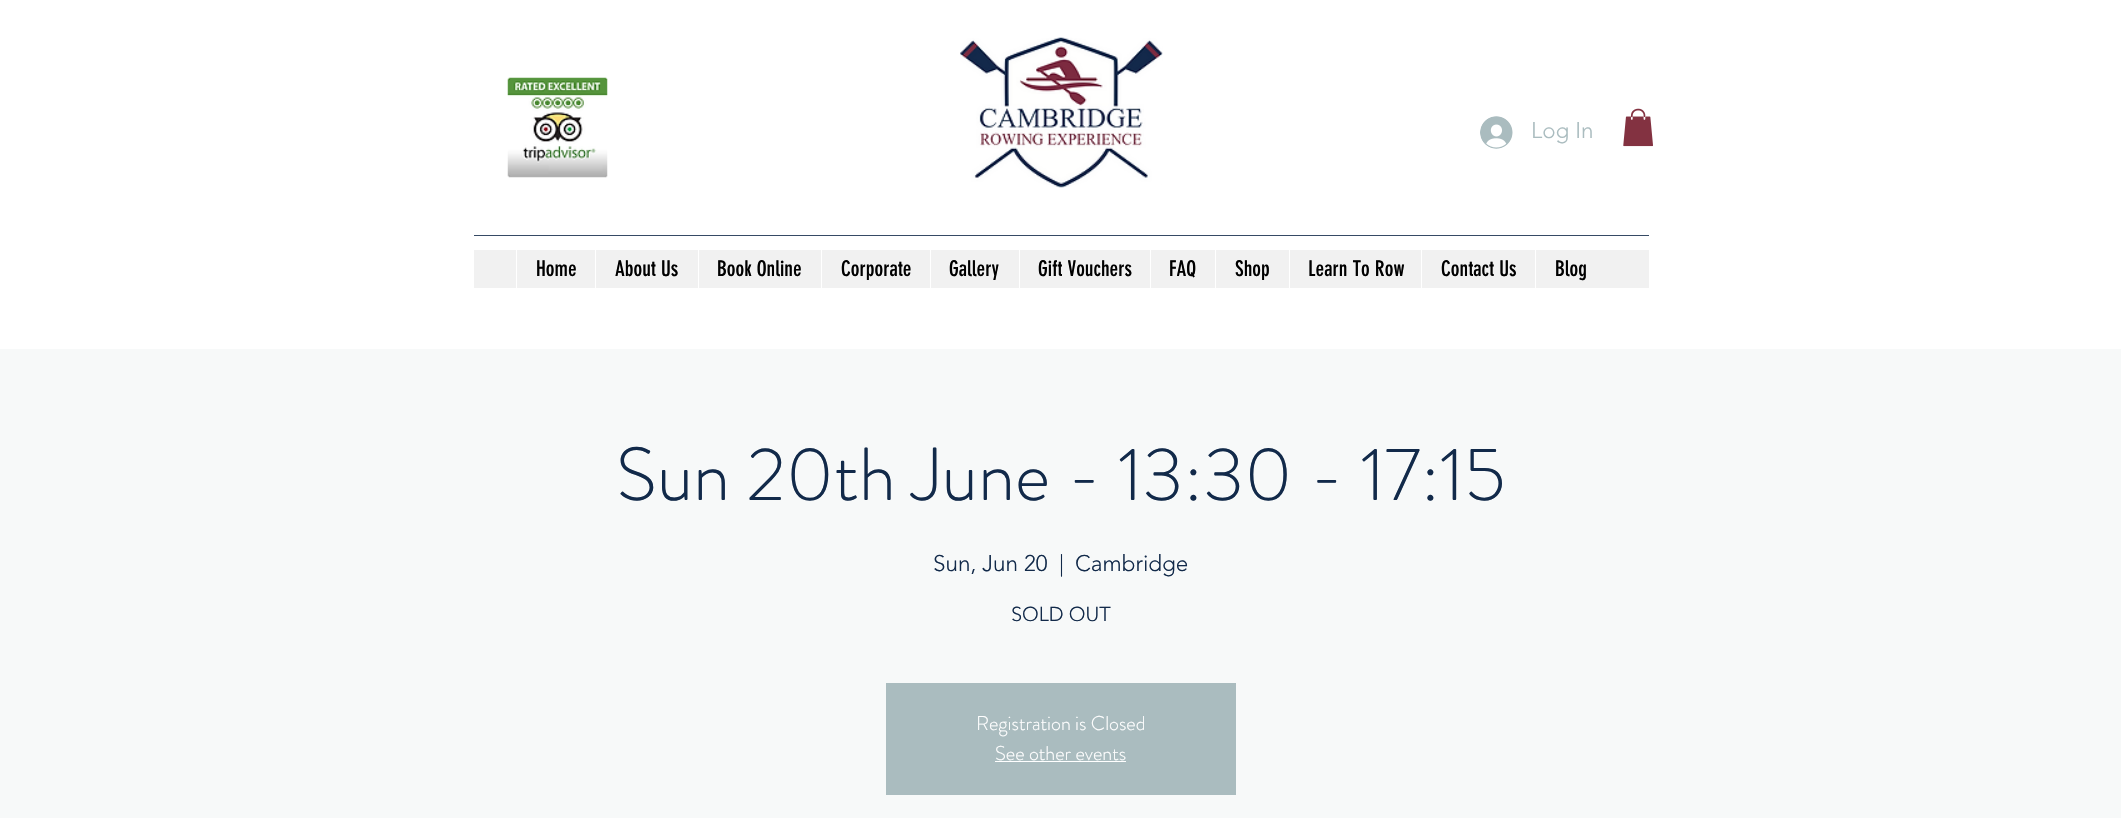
static SkFont makeFont(const char* family, int weight, float size, bool italic = false) {
  SkFontStyle style(weight, SkFontStyle::kNormal_Width,
    italic ? SkFontStyle::kItalic_Slant : SkFontStyle::kUpright_Slant);
  SkFont result(fontMgr->matchFamilyStyle(family, style), size);
  result.setSubpixel(true);
  return result;
}

static void text(SkCanvas* c, const char* s, float x, float y, const SkFont& font, SkColor color) {
  SkPaint ink(SkColor4f::FromColor(color));
  ink.setAntiAlias(true);
  c->drawString(s, x, y, font, ink);
}

static void box(SkCanvas* c, float l, float t, float r, float b, SkColor color) {
  SkPaint ink(SkColor4f::FromColor(color));
  ink.setAntiAlias(true);
  c->drawRect(SkRect::MakeLTRB(l, t, r, b), ink);
}

static void picture(SkCanvas* c, const char* path, float l, float t, float r, float b) {
  auto image = SkImages::DeferredFromEncodedData(SkData::MakeFromFileName(path));
  c->drawImageRect(image, SkRect::MakeLTRB(l, t, r, b), SkSamplingOptions());
}

void draw(SkCanvas* c) {
  SkPaint paint;
  paint.setAntiAlias(true);
  c->clear(0xffffffff);
  picture(c, "img_01.png", 507, 77, 608, 178);
  picture(c, "img_02.png", 960, 37, 1163, 188);
  picture(c, "img_03.png", 1480, 116, 1513, 149);
  SkFont face1 = makeFont("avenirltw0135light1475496", 300, 22.5f);
  text(c, "Log In", 1531, 138, face1, 0xffaabcbf);
  picture(c, "img_04.png", 1623, 108, 1653, 147);
  box(c, 474, 235, 1649, 236, 0xff364a65);
  box(c, 474, 250, 1649, 288, 0xfff1f1f1);
  box(c, 516, 250, 517, 288, 0xffffffff);
  SkFont face2 = makeFont("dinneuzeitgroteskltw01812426", 400, 21.25f);
  text(c, "Home", 536, 276, face2, 0xff000000);
  box(c, 595, 250, 596, 288, 0xffffffff);
  text(c, "About Us", 615, 276, face2, 0xff000000);
  box(c, 698, 250, 699, 288, 0xffffffff);
  text(c, "Book Online", 717, 276, face2, 0xff000000);
  box(c, 821, 250, 822, 288, 0xffffffff);
  text(c, "Corporate", 841, 276, face2, 0xff000000);
  box(c, 930, 250, 931, 288, 0xffffffff);
  text(c, "Gallery", 949, 276, face2, 0xff000000);
  box(c, 1019, 250, 1020, 288, 0xffffffff);
  text(c, "Gift Vouchers", 1038, 276, face2, 0xff000000);
  box(c, 1150, 250, 1151, 288, 0xffffffff);
  text(c, "FAQ", 1169, 276, face2, 0xff000000);
  box(c, 1215, 250, 1216, 288, 0xffffffff);
  text(c, "Shop", 1235, 276, face2, 0xff000000);
  box(c, 1289, 250, 1290, 288, 0xffffffff);
  text(c, "Learn To Row", 1308, 276, face2, 0xff000000);
  box(c, 1421, 250, 1422, 288, 0xffffffff);
  text(c, "Contact Us", 1441, 276, face2, 0xff000000);
  box(c, 1535, 250, 1536, 288, 0xffffffff);
  text(c, "Blog", 1555, 276, face2, 0xff000000);
  box(c, 0, 349, 2121, 818, 0xfff7f9f9);
  SkFont face3 = makeFont("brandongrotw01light", 300, 75);
  text(c, "Sun 20th June - 13:30 - 17:15", 616, 500, face3, 0xff122a4a);
  text(c, "Sun, Jun 20", 933, 571, face1, 0xff122a4a);
  text(c, "|", 1059, 571, face1, 0xff122a4a);
  text(c, "Cambridge", 1075, 571, face1, 0xff122a4a);
  SkFont face4 = makeFont("avenirltw0135light1475496", 300, 20);
  text(c, "SOLD OUT", 1011, 621, face4, 0xff122a4a);
  box(c, 886, 683, 1236, 795, 0xffaabcbf);
  SkFont face5 = makeFont("brandongrotw01light", 300, 20);
  text(c, "Registration is Closed", 976, 730, face5, 0xffffffff);
  text(c, "See other events", 995, 760, face5, 0xffffffff);
  box(c, 995, 761, 1126, 762, 0xffffffff);
}
